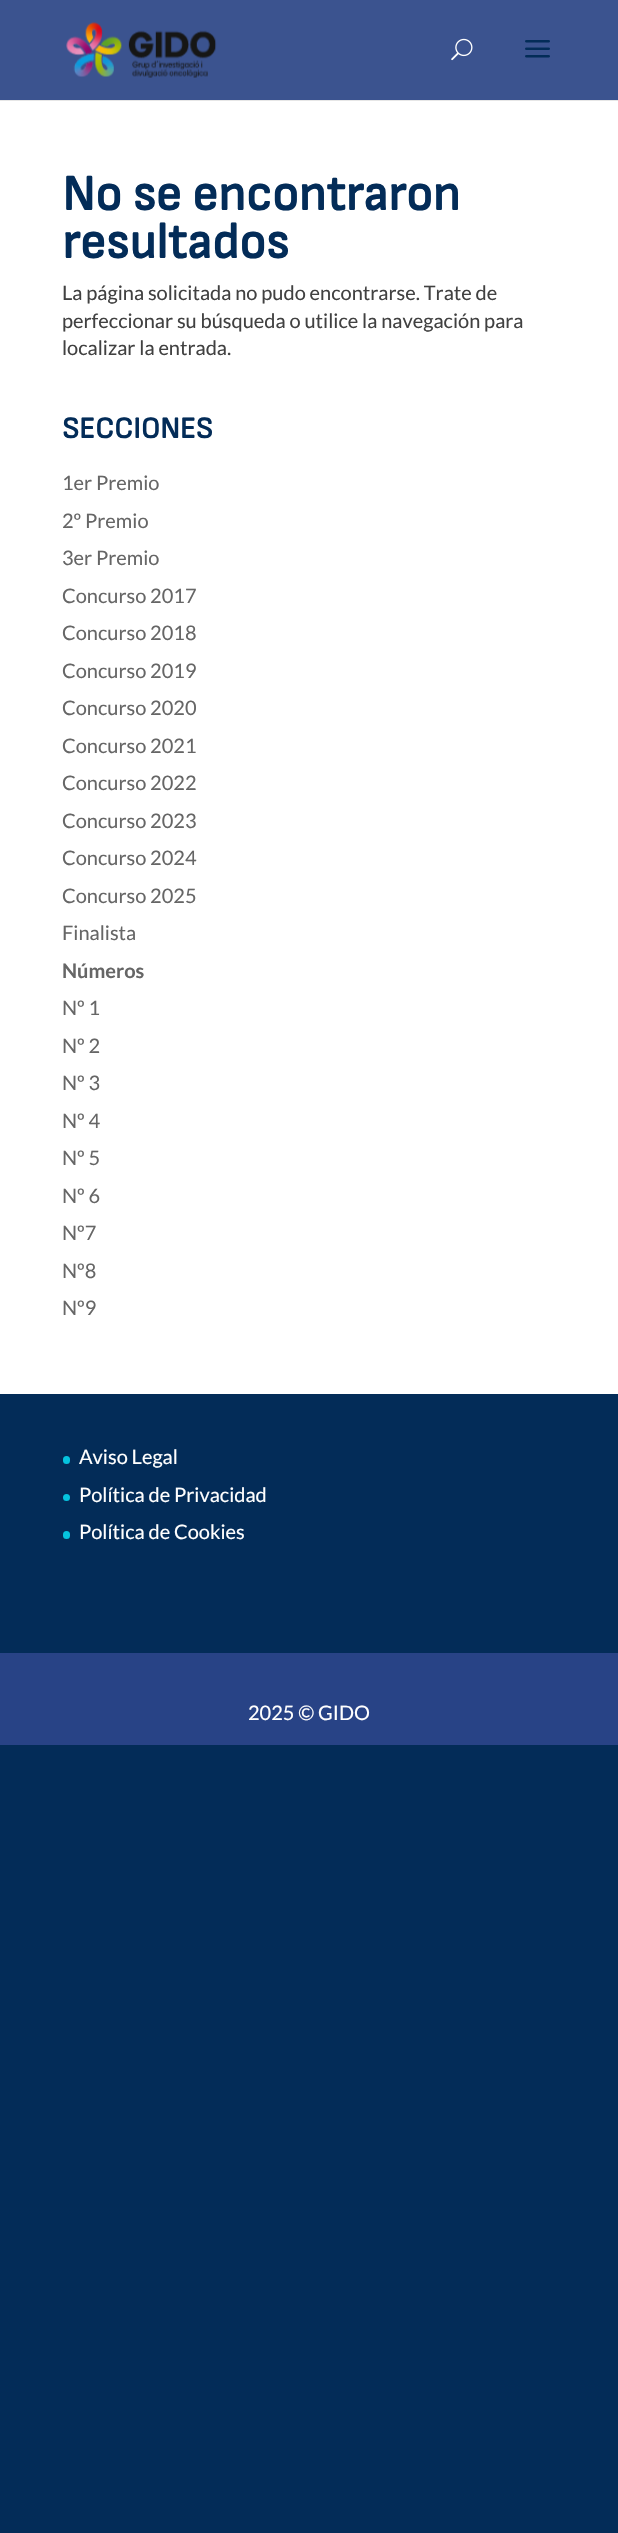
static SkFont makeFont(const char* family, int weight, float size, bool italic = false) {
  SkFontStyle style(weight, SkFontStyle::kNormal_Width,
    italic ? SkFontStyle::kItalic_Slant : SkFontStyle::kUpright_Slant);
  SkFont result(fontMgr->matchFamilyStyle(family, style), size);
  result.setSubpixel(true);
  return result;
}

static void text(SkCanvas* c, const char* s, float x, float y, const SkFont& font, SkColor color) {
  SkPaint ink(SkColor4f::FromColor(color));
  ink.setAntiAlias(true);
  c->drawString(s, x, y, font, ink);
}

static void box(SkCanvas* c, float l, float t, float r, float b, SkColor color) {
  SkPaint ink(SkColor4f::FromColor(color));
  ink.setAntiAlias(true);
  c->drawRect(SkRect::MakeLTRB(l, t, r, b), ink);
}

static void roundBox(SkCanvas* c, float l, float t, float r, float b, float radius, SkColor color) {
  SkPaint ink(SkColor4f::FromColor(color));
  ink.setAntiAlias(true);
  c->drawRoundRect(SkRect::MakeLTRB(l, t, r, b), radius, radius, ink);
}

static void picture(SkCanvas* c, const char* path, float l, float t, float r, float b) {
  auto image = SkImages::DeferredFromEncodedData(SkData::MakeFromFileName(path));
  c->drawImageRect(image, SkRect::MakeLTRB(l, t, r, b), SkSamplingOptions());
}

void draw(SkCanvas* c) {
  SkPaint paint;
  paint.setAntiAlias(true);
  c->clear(0xff032c58);
  paint.setColor(0xffe6e6e6);
  c->drawPath(SkPathBuilder().moveTo(0, 100).lineTo(0, 101).lineTo(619, 101).lineTo(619, 1).lineTo(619, 100).close().detach(), paint);
  box(c, 0, 0, 618, 100, 0xff3b538f);
  picture(c, "img_01.png", 66, 22, 217, 78);
  picture(c, "img_02.png", 451, 38, 473, 61);
  picture(c, "img_03.png", 525, 40, 550, 58);
  box(c, 0, 101, 618, 1394, 0xffffffff);
  SkFont face1 = makeFont("Sofia Sans", 700, 50);
  text(c, "No se encontraron", 62, 210, face1, 0xff032c58);
  text(c, "resultados", 62, 258, face1, 0xff032c58);
  SkFont face2 = makeFont("Lato", 400, 20);
  text(c, "La página solicitada no pudo encontrarse. Trate de", 62, 300, face2, 0xff414141);
  text(c, "perfeccionar su búsqueda o utilice la navegación para", 62, 328, face2, 0xff414141);
  text(c, "localizar la entrada.", 62, 355, face2, 0xff414141);
  SkFont face3 = makeFont("Sofia Sans", 700, 30);
  text(c, "SECCIONES", 62, 438, face3, 0xff032c58);
  text(c, "1er Premio", 62, 490, face2, 0xff666666);
  text(c, "2º Premio", 62, 528, face2, 0xff666666);
  text(c, "3er Premio", 62, 565, face2, 0xff666666);
  text(c, "Concurso 2017", 62, 603, face2, 0xff666666);
  text(c, "Concurso 2018", 62, 640, face2, 0xff666666);
  text(c, "Concurso 2019", 62, 678, face2, 0xff666666);
  text(c, "Concurso 2020", 62, 715, face2, 0xff666666);
  text(c, "Concurso 2021", 62, 753, face2, 0xff666666);
  text(c, "Concurso 2022", 62, 790, face2, 0xff666666);
  text(c, "Concurso 2023", 62, 828, face2, 0xff666666);
  text(c, "Concurso 2024", 62, 865, face2, 0xff666666);
  text(c, "Concurso 2025", 62, 903, face2, 0xff666666);
  text(c, "Finalista", 62, 940, face2, 0xff666666);
  SkFont face4 = makeFont("Lato", 700, 20);
  text(c, "Números", 62, 978, face4, 0xff666666);
  text(c, "Nº 1", 62, 1015, face2, 0xff666666);
  text(c, "Nº 2", 62, 1053, face2, 0xff666666);
  text(c, "Nº 3", 62, 1090, face2, 0xff666666);
  text(c, "Nº 4", 62, 1128, face2, 0xff666666);
  text(c, "Nº 5", 62, 1165, face2, 0xff666666);
  text(c, "Nº 6", 62, 1203, face2, 0xff666666);
  text(c, "Nº7", 62, 1240, face2, 0xff666666);
  text(c, "Nº8", 62, 1278, face2, 0xff666666);
  text(c, "Nº9", 62, 1315, face2, 0xff666666);
  roundBox(c, 63, 1456, 70, 1464, 3.5f, 0xff05c3de);
  text(c, "Aviso Legal", 79, 1464, face2, 0xffffffff);
  paint.setColor(0xff05c3de);
  c->drawCircle(66.5f, 1497.5f, 3.5f, paint);
  text(c, "Política de Privacidad", 79, 1502, face2, 0xffffffff);
  roundBox(c, 63, 1531, 70, 1539, 3.5f, 0xff05c3de);
  text(c, "Política de Cookies", 79, 1539, face2, 0xffffffff);
  box(c, 0, 1653, 618, 1745, 0xff284386);
  text(c, "2025 © GIDO", 248, 1720, face2, 0xffffffff);
}
